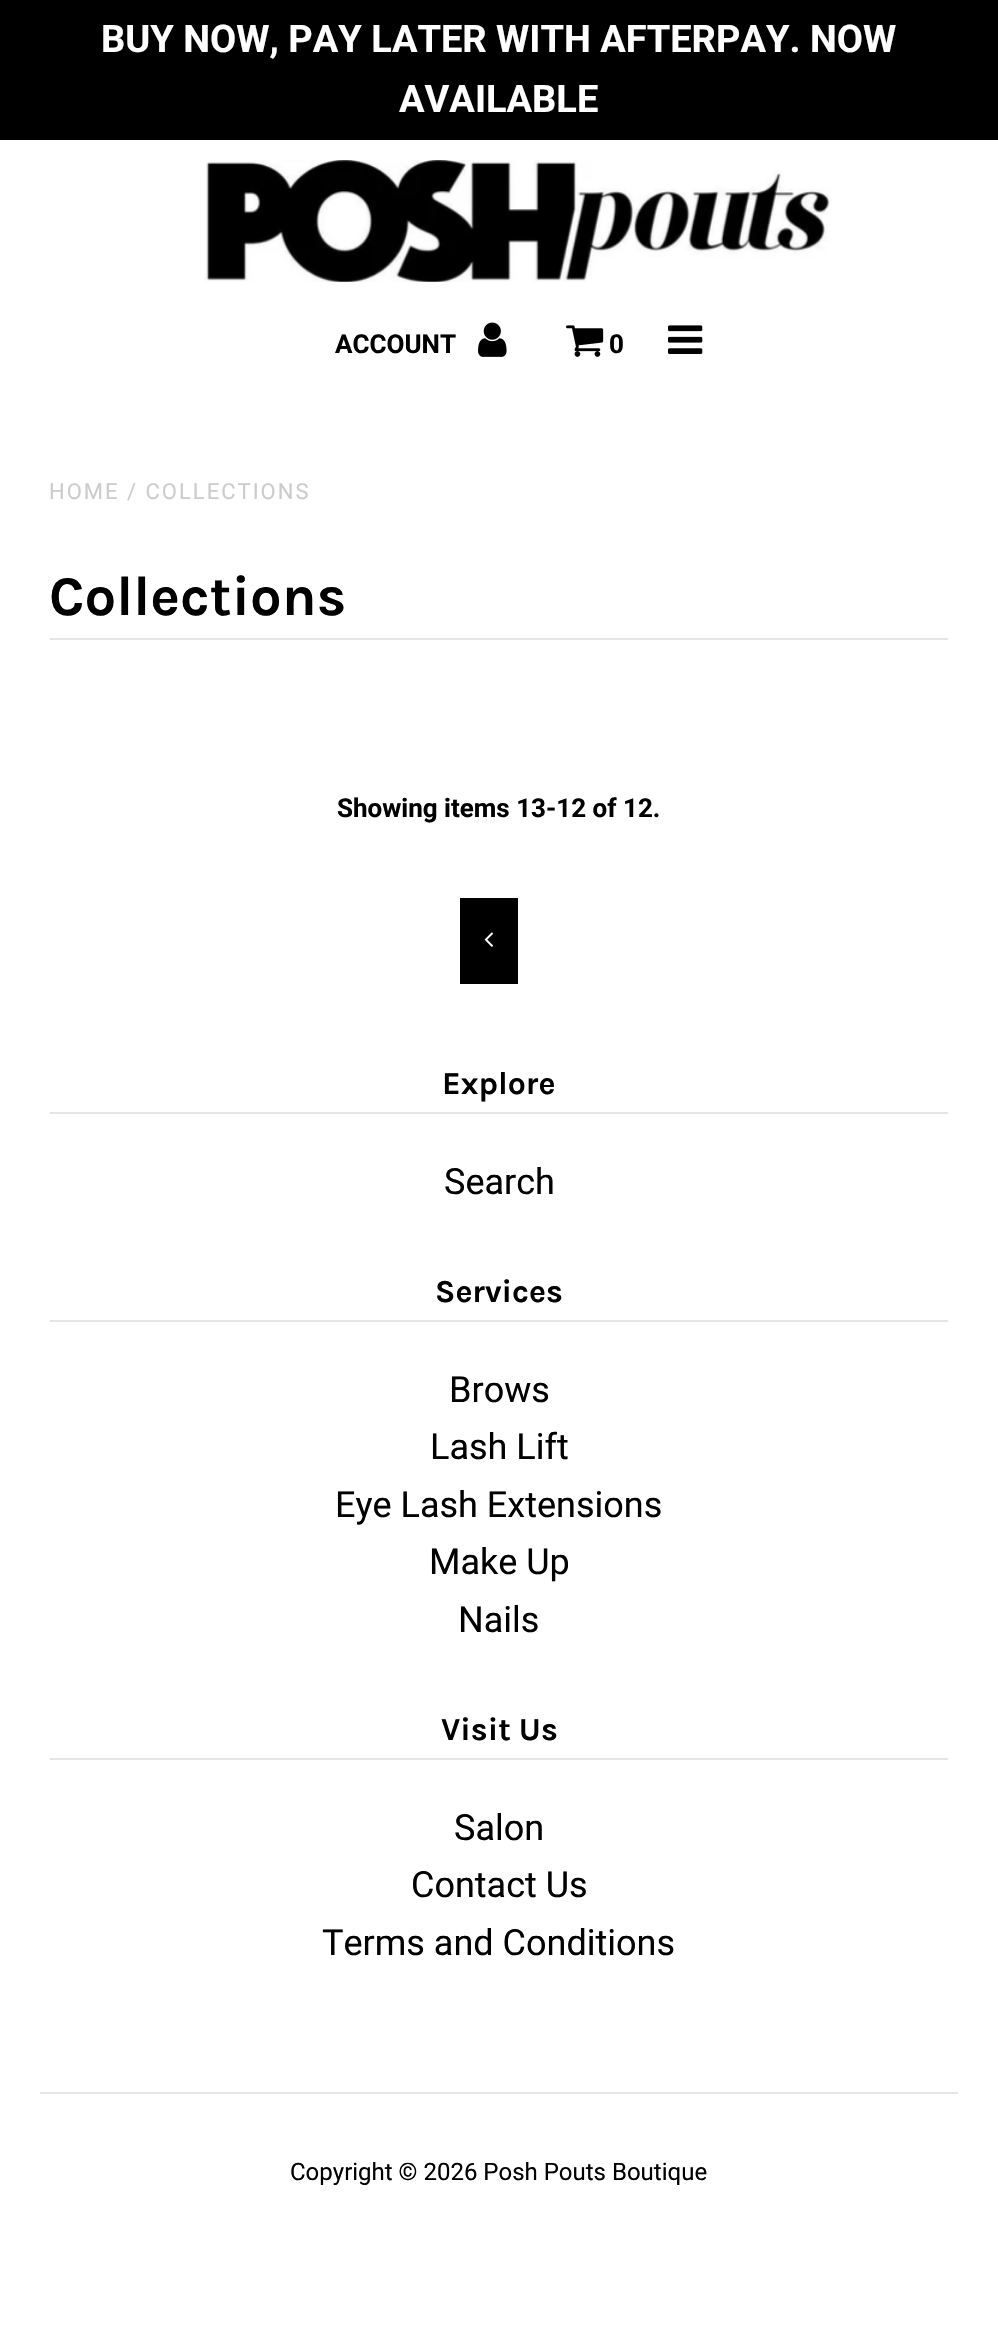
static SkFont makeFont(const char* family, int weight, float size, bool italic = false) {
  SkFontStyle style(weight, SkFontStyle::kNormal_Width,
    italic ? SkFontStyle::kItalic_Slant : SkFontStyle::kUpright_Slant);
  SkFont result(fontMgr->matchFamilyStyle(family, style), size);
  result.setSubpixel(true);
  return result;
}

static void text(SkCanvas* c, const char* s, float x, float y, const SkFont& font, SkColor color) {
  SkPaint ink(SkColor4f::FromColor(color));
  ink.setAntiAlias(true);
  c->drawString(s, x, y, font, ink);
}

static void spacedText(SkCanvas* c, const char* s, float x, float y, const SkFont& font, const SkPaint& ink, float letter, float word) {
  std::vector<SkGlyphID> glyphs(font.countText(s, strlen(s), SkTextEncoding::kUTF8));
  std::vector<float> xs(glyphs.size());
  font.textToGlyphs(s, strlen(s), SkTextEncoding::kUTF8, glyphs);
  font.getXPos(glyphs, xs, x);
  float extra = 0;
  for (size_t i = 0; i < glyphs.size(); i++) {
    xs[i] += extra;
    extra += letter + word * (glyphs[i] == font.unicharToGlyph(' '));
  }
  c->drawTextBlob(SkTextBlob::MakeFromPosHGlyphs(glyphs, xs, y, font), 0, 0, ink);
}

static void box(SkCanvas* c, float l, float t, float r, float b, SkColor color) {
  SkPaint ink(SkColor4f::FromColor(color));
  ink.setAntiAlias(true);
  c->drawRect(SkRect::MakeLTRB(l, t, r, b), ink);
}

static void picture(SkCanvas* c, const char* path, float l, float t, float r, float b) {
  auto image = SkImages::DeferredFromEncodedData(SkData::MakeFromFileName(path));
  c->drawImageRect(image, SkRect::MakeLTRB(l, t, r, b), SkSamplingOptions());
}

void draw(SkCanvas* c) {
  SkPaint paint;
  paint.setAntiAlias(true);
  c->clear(0xffffffff);
  box(c, 0, 0, 998, 140, 0xff000000);
  SkFont face1 = makeFont("Roboto", 700, 38);
  text(c, "BUY NOW, PAY LATER WITH AFTERPAY. NOW", 101, 52, face1, 0xffffffff);
  text(c, "AVAILABLE", 399, 112, face1, 0xffffffff);
  picture(c, "img_01.png", 204, 160, 832, 282);
  SkFont face2 = makeFont("Roboto", 700, 26);
  text(c, "ACCOUNT", 335, 353, face2, 0xff000000);
  picture(c, "img_02.png", 478, 322, 507, 357);
  picture(c, "img_03.png", 566, 325, 604, 357);
  text(c, "0", 609, 353, face2, 0xff000000);
  picture(c, "img_04.png", 668, 325, 703, 354);
  SkFont face3 = makeFont("Roboto", 400, 22);
  paint.setColor(0xffcccccc);
  spacedText(c, "HOME / COLLECTIONS", 49, 499, face3, paint, 2, 0);
  box(c, 50, 638, 948, 640, 0xffe5e5e5);
  SkFont face4 = makeFont("Karla", 700, 56);
  text(c, "Collections", 49, 615, face4, 0xff000000);
  text(c, "Showing items 13-12 of 12.", 337, 817, face2, 0xff000000);
  box(c, 460, 898, 518, 984, 0xff000000);
  picture(c, "img_05.png", 484, 932, 494, 947);
  box(c, 50, 1112, 948, 1114, 0xffe5e5e5);
  SkFont face5 = makeFont("Karla", 700, 32);
  text(c, "Explore", 442, 1094, face5, 0xff000000);
  SkFont face6 = makeFont("Roboto", 400, 36);
  text(c, "Search", 444, 1194, face6, 0xff000000);
  box(c, 50, 1320, 948, 1322, 0xffe5e5e5);
  text(c, "Services", 435, 1302, face5, 0xff000000);
  text(c, "Brows", 449, 1402, face6, 0xff000000);
  text(c, "Lash Lift", 430, 1459, face6, 0xff000000);
  text(c, "Eye Lash Extensions", 335, 1517, face6, 0xff000000);
  text(c, "Make Up", 429, 1574, face6, 0xff000000);
  text(c, "Nails", 458, 1632, face6, 0xff000000);
  box(c, 50, 1758, 948, 1760, 0xffe5e5e5);
  text(c, "Visit Us", 441, 1740, face5, 0xff000000);
  text(c, "Salon", 454, 1840, face6, 0xff000000);
  text(c, "Contact Us", 411, 1897, face6, 0xff000000);
  text(c, "Terms and Conditions", 322, 1955, face6, 0xff000000);
  box(c, 40, 2092, 958, 2094, 0xffe5e5e5);
  SkFont face7 = makeFont("Roboto", 400, 24);
  text(c, "Copyright © 2026 Posh Pouts Boutique", 290, 2180, face7, 0xff000000);
}
